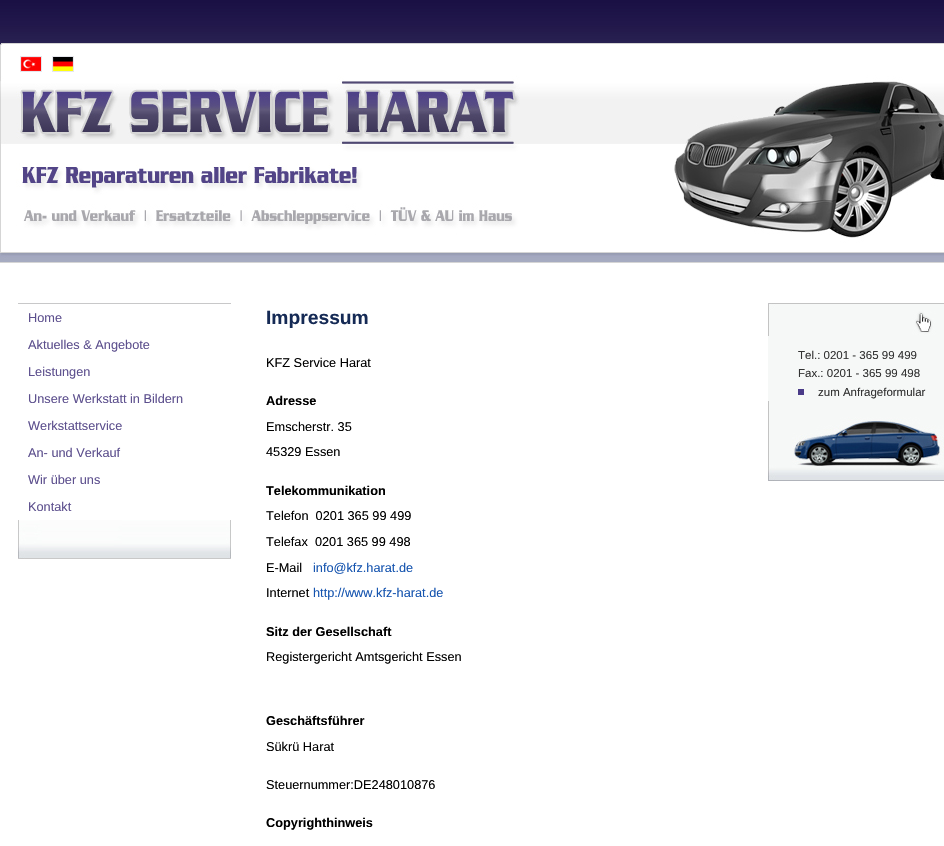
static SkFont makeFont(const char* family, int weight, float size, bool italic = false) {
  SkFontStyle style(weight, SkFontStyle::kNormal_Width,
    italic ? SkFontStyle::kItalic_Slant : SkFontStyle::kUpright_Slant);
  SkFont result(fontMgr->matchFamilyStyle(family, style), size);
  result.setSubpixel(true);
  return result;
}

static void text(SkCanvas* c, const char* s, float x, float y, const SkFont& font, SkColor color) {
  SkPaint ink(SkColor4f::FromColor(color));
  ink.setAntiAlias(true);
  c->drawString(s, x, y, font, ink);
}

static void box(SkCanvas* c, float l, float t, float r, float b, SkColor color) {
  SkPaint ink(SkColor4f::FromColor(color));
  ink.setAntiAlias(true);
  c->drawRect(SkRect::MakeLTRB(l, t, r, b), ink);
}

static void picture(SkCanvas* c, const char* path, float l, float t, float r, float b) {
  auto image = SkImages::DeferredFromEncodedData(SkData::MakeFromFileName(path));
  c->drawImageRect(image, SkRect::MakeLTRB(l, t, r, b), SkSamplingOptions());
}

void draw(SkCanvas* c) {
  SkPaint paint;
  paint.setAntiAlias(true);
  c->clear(0xffffffff);
  picture(c, "img_01.png", 0, 0, 944, 43);
  picture(c, "img_02.png", 0, 43, 944, 263);
  paint.setStyle(SkPaint::kStroke_Style);
  paint.setStrokeWidth(1);
  paint.setColor(0xffe5e6ec);
  c->drawRect(SkRect::MakeLTRB(20.5f, 56.5f, 41.5f, 71.5f), paint);
  picture(c, "img_03.png", 21, 57, 41, 71);
  c->drawRect(SkRect::MakeLTRB(52.5f, 56.5f, 73.5f, 71.5f), paint);
  picture(c, "img_04.png", 53, 57, 73, 71);
  box(c, 18, 303, 231, 304, 0xffc8c8c9);
  SkFont face1 = makeFont("Liberation Sans", 400, 12.75f);
  text(c, "Home", 28, 322, face1, 0xff5d508e);
  text(c, "Aktuelles & Angebote", 28, 349, face1, 0xff5d508e);
  text(c, "Leistungen", 28, 376, face1, 0xff5d508e);
  text(c, "Unsere Werkstatt in Bildern", 28, 403, face1, 0xff5d508e);
  text(c, "Werkstattservice", 28, 430, face1, 0xff5d508e);
  text(c, "An- und Verkauf", 28, 457, face1, 0xff5d508e);
  text(c, "Wir über uns", 28, 484, face1, 0xff5d508e);
  text(c, "Kontakt", 28, 511, face1, 0xff5d508e);
  picture(c, "img_05.png", 18, 520, 231, 559);
  SkFont face2 = makeFont("Liberation Sans", 700, 19.25f);
  text(c, "Impressum", 266, 324, face2, 0xff152a55);
  text(c, "KFZ Service Harat", 266, 367, face1, 0xff000000);
  SkFont face3 = makeFont("Liberation Sans", 700, 12.75f);
  text(c, "Adresse", 266, 405, face3, 0xff000000);
  text(c, "Emscherstr. 35", 266, 431, face1, 0xff000000);
  text(c, "45329 Essen", 266, 456, face1, 0xff000000);
  text(c, "Telekommunikation", 266, 495, face3, 0xff000000);
  text(c, "Telefon  0201 365 99 499", 266, 520, face1, 0xff000000);
  text(c, "Telefax  0201 365 99 498", 266, 546, face1, 0xff000000);
  text(c, "E-Mail", 266, 572, face1, 0xff000000);
  text(c, "info@kfz.harat.de", 313, 572, face1, 0xff1554af);
  text(c, "Internet", 266, 597, face1, 0xff000000);
  text(c, "http://www.kfz-harat.de", 313, 597, face1, 0xff1554af);
  text(c, "Sitz der Gesellschaft", 266, 636, face3, 0xff000000);
  text(c, "Registergericht Amtsgericht Essen", 266, 661, face1, 0xff000000);
  text(c, "Geschäftsführer", 266, 725, face3, 0xff000000);
  text(c, "Sükrü Harat", 266, 751, face1, 0xff000000);
  text(c, "Steuernummer:DE248010876", 266, 789, face1, 0xff000000);
  text(c, "Copyrighthinweis", 266, 827, face3, 0xff000000);
  picture(c, "img_06.png", 768, 303, 944, 336);
  box(c, 768, 336, 944, 401, 0xfff6f8f7);
  SkFont face4 = makeFont("Liberation Sans", 400, 11.5f);
  text(c, "Tel.: 0201 - 365 99 499", 798, 359, face4, 0xff333333);
  text(c, "Fax.: 0201 - 365 99 498", 798, 377, face4, 0xff333333);
  box(c, 798, 389, 804, 395, 0xff4a3b88);
  text(c, "zum Anfrageformular", 818, 396, face4, 0xff333333);
  picture(c, "img_07.png", 768, 401, 944, 481);
}
